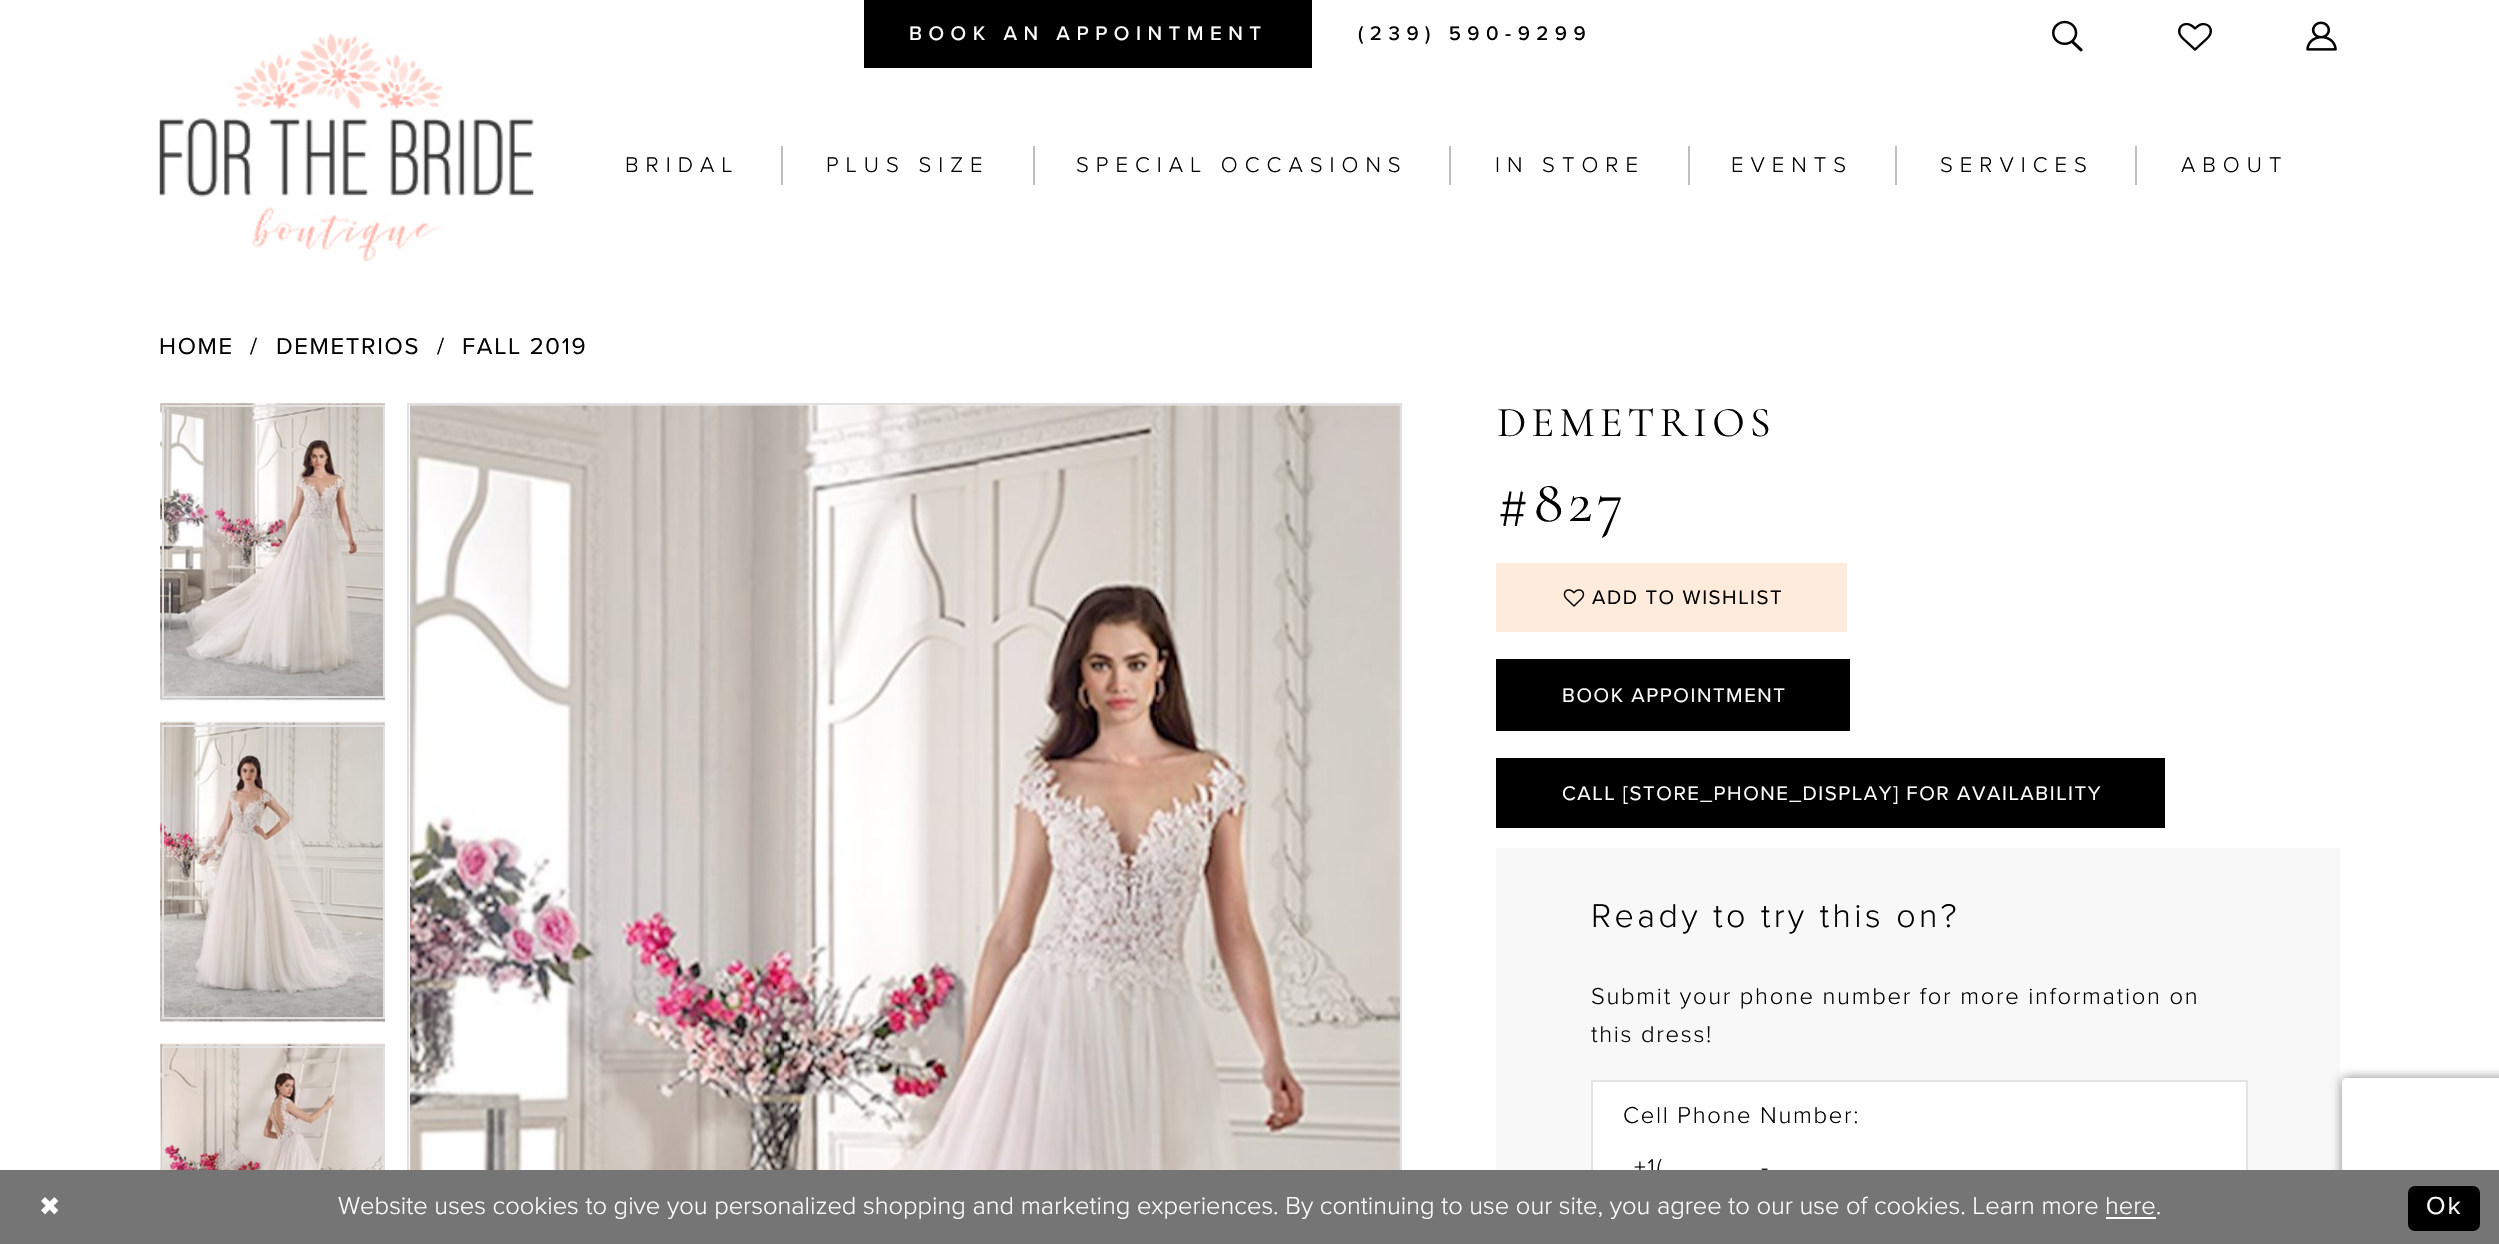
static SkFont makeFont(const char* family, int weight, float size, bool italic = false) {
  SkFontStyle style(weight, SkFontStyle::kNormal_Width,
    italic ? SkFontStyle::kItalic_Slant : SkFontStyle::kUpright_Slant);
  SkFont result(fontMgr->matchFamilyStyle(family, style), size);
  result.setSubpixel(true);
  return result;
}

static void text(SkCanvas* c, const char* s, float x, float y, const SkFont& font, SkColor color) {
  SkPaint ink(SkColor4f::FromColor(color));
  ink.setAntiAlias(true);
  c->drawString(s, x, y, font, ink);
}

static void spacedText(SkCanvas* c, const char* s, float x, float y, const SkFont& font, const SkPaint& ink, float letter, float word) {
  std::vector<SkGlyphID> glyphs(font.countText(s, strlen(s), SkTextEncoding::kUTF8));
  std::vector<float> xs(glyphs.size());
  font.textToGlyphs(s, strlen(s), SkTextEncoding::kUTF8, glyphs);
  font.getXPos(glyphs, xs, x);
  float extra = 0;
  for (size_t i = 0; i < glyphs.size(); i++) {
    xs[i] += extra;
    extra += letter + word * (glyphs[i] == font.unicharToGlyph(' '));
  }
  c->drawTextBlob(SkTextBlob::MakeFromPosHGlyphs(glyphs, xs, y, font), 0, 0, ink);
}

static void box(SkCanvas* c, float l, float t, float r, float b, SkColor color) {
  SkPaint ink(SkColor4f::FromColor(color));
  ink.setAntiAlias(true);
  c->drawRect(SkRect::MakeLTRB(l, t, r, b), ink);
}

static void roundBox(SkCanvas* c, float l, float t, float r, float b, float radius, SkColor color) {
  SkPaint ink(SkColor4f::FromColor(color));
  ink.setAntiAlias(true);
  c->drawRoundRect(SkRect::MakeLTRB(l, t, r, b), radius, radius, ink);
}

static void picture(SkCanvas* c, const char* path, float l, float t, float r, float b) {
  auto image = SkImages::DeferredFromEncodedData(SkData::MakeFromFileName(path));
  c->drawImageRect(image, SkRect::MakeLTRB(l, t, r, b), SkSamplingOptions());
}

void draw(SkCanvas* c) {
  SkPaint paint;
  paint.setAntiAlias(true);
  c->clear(0xffffffff);
  box(c, 864, 0, 1312, 68, 0xff000000);
  SkFont face1 = makeFont("Proxima Nova", 500, 20.4f);
  paint.setColor(0xffffffff);
  spacedText(c, "BOOK AN APPOINTMENT", 909, 40, face1, paint, 6.5f, 0);
  paint.setColor(0xff000000);
  spacedText(c, "(239) 590-9299", 1358, 40, face1, paint, 6.5f, 0);
  picture(c, "img_01.png", 2052, 20, 2083, 52);
  picture(c, "img_02.png", 2178, 23, 2212, 51);
  picture(c, "img_03.png", 2306, 21, 2337, 51);
  picture(c, "img_04.png", 159, 33, 534, 261);
  SkFont face2 = makeFont("Proxima Nova", 300, 22.1f);
  spacedText(c, "BRIDAL", 625, 172, face2, paint, 7, 0);
  box(c, 781, 146, 783, 185, 0xffbfbfbf);
  spacedText(c, "PLUS SIZE", 826, 172, face2, paint, 7, 0);
  box(c, 1033, 146, 1035, 185, 0xffbfbfbf);
  spacedText(c, "SPECIAL OCCASIONS", 1076, 172, face2, paint, 7, 0);
  box(c, 1449, 146, 1451, 185, 0xffbfbfbf);
  spacedText(c, "IN STORE", 1495, 172, face2, paint, 7, 0);
  box(c, 1688, 146, 1690, 185, 0xffbfbfbf);
  spacedText(c, "EVENTS", 1731, 172, face2, paint, 7, 0);
  box(c, 1895, 146, 1897, 185, 0xffbfbfbf);
  spacedText(c, "SERVICES", 1940, 172, face2, paint, 7, 0);
  box(c, 2135, 146, 2137, 185, 0xffbfbfbf);
  spacedText(c, "ABOUT", 2181, 172, face2, paint, 7, 0);
  SkFont face3 = makeFont("Proxima Nova", 400, 23.8f);
  spacedText(c, "HOME", 159, 354, face3, paint, 1.7f, 0);
  spacedText(c, "/", 250, 354, face3, paint, 1.7f, 0);
  spacedText(c, "DEMETRIOS", 276, 354, face3, paint, 1.7f, 0);
  spacedText(c, "/", 437, 354, face3, paint, 1.7f, 0);
  spacedText(c, "FALL 2019", 462, 354, face3, paint, 1.7f, 0);
  picture(c, "img_05.png", 160, 403, 385, 701);
  paint.setStyle(SkPaint::kStroke_Style);
  paint.setStrokeWidth(2);
  paint.setColor(0xffe0e0e0);
  c->drawRect(SkRect::MakeLTRB(163, 406, 384, 697), paint);
  picture(c, "img_06.png", 160, 721, 385, 1022);
  c->drawRect(SkRect::MakeLTRB(163, 726, 384, 1018), paint);
  picture(c, "img_07.png", 160, 1043, 385, 1170);
  c->drawRect(SkRect::MakeLTRB(163, 1047, 384, 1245), paint);
  c->drawRect(SkRect::MakeLTRB(408, 404, 1401, 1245), paint);
  picture(c, "img_08.png", 410, 405, 1400, 1170);
  SkFont face4 = makeFont("Cormorant Garamond", 400, 42.5f);
  paint.setStyle(SkPaint::kFill_Style);
  paint.setColor(0xff000000);
  spacedText(c, "DEMETRIOS", 1497, 436, face4, paint, 5, 0);
  SkFont face5 = makeFont("Cormorant Garamond", 400, 61);
  spacedText(c, "#827", 1497, 521, face5, paint, 4.5f, 0);
  box(c, 1496, 563, 1847, 632, 0xffffebdb);
  picture(c, "img_09.png", 1563, 589, 1585, 607);
  SkFont face6 = makeFont("Proxima Nova", 400, 20.4f);
  spacedText(c, "ADD TO WISHLIST", 1592, 604, face6, paint, 1.55f, 0);
  box(c, 1496, 659, 1850, 731, 0xff000000);
  paint.setColor(0xffffffff);
  spacedText(c, "BOOK APPOINTMENT", 1562, 702, face6, paint, 1.55f, 0);
  box(c, 1496, 758, 2165, 828, 0xff000000);
  spacedText(c, "CALL [STORE_PHONE_DISPLAY] FOR AVAILABILITY", 1562, 800, face6, paint, 1.55f, 0);
  box(c, 1496, 848, 2340, 1170, 0xfff8f8f8);
  SkFont face7 = makeFont("Proxima Nova", 300, 34);
  paint.setColor(0xff000000);
  spacedText(c, "Ready to try this on?", 1591, 927, face7, paint, 3.4f, 0);
  SkFont face8 = makeFont("Proxima Nova", 300, 23.8f);
  spacedText(c, "Submit your phone number for more information on", 1591, 1004, face8, paint, 1.7f, 0);
  spacedText(c, "this dress!", 1591, 1042, face8, paint, 1.7f, 0);
  box(c, 1593, 1082, 2246, 1170, 0xffffffff);
  paint.setStyle(SkPaint::kStroke_Style);
  paint.setColor(0xffe3e3e3);
  c->drawRect(SkRect::MakeLTRB(1592, 1081, 2247, 1205), paint);
  paint.setStyle(SkPaint::kFill_Style);
  paint.setColor(0xff000000);
  spacedText(c, "Cell Phone Number:", 1623, 1123, face8, paint, 1.7f, 0);
  spacedText(c, "+1(", 1634, 1175, face8, paint, 1.7f, 0);
  spacedText(c, "-", 1761, 1175, face8, paint, 1.7f, 0);
  c->save();
  c->clipPath(SkPathBuilder(SkPathFillType::kEvenOdd).moveTo(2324, 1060).lineTo(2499, 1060).lineTo(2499, 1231).lineTo(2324, 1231).close().moveTo(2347, 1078).lineTo(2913, 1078).cubicTo(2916, 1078, 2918, 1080, 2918, 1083).lineTo(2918, 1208).cubicTo(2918, 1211, 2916, 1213, 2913, 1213).lineTo(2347, 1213).cubicTo(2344, 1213, 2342, 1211, 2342, 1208).lineTo(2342, 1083).cubicTo(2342, 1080, 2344, 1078, 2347, 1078).close().detach(), true);
  paint.setColor(0xff808080);
  paint.setMaskFilter(SkMaskFilter::MakeBlur(kNormal_SkBlurStyle, 5.5f));
  c->drawRoundRect(SkRect::MakeLTRB(2342, 1078, 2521, 1213), 5, 5, paint);
  paint.setMaskFilter(nullptr);
  c->restore();
  box(c, 0, 1170, 2499, 1244, 0xff757575);
  SkFont face9 = makeFont("DejaVu Sans", 400, 25.5f);
  paint.setColor(0xffffffff);
  spacedText(c, "✖", 39, 1215, face9, paint, 2, 0);
  SkFont face10 = makeFont("Proxima Nova", 300, 25.5f);
  text(c, "Website uses cookies to give you personalized shopping and marketing experiences. By continuing to use our site, you agree to our use of cookies. Learn more", 338, 1214, face10, 0xffffffff);
  text(c, "here.", 2105, 1214, face10, 0xffffffff);
  box(c, 2106, 1217, 2156, 1219, 0xffffffff);
  roundBox(c, 2408, 1186, 2480, 1231, 7, 0xff000000);
  SkFont face11 = makeFont("Proxima Nova", 400, 25.5f);
  spacedText(c, "Ok", 2426, 1214, face11, paint, 2, 0);
}
